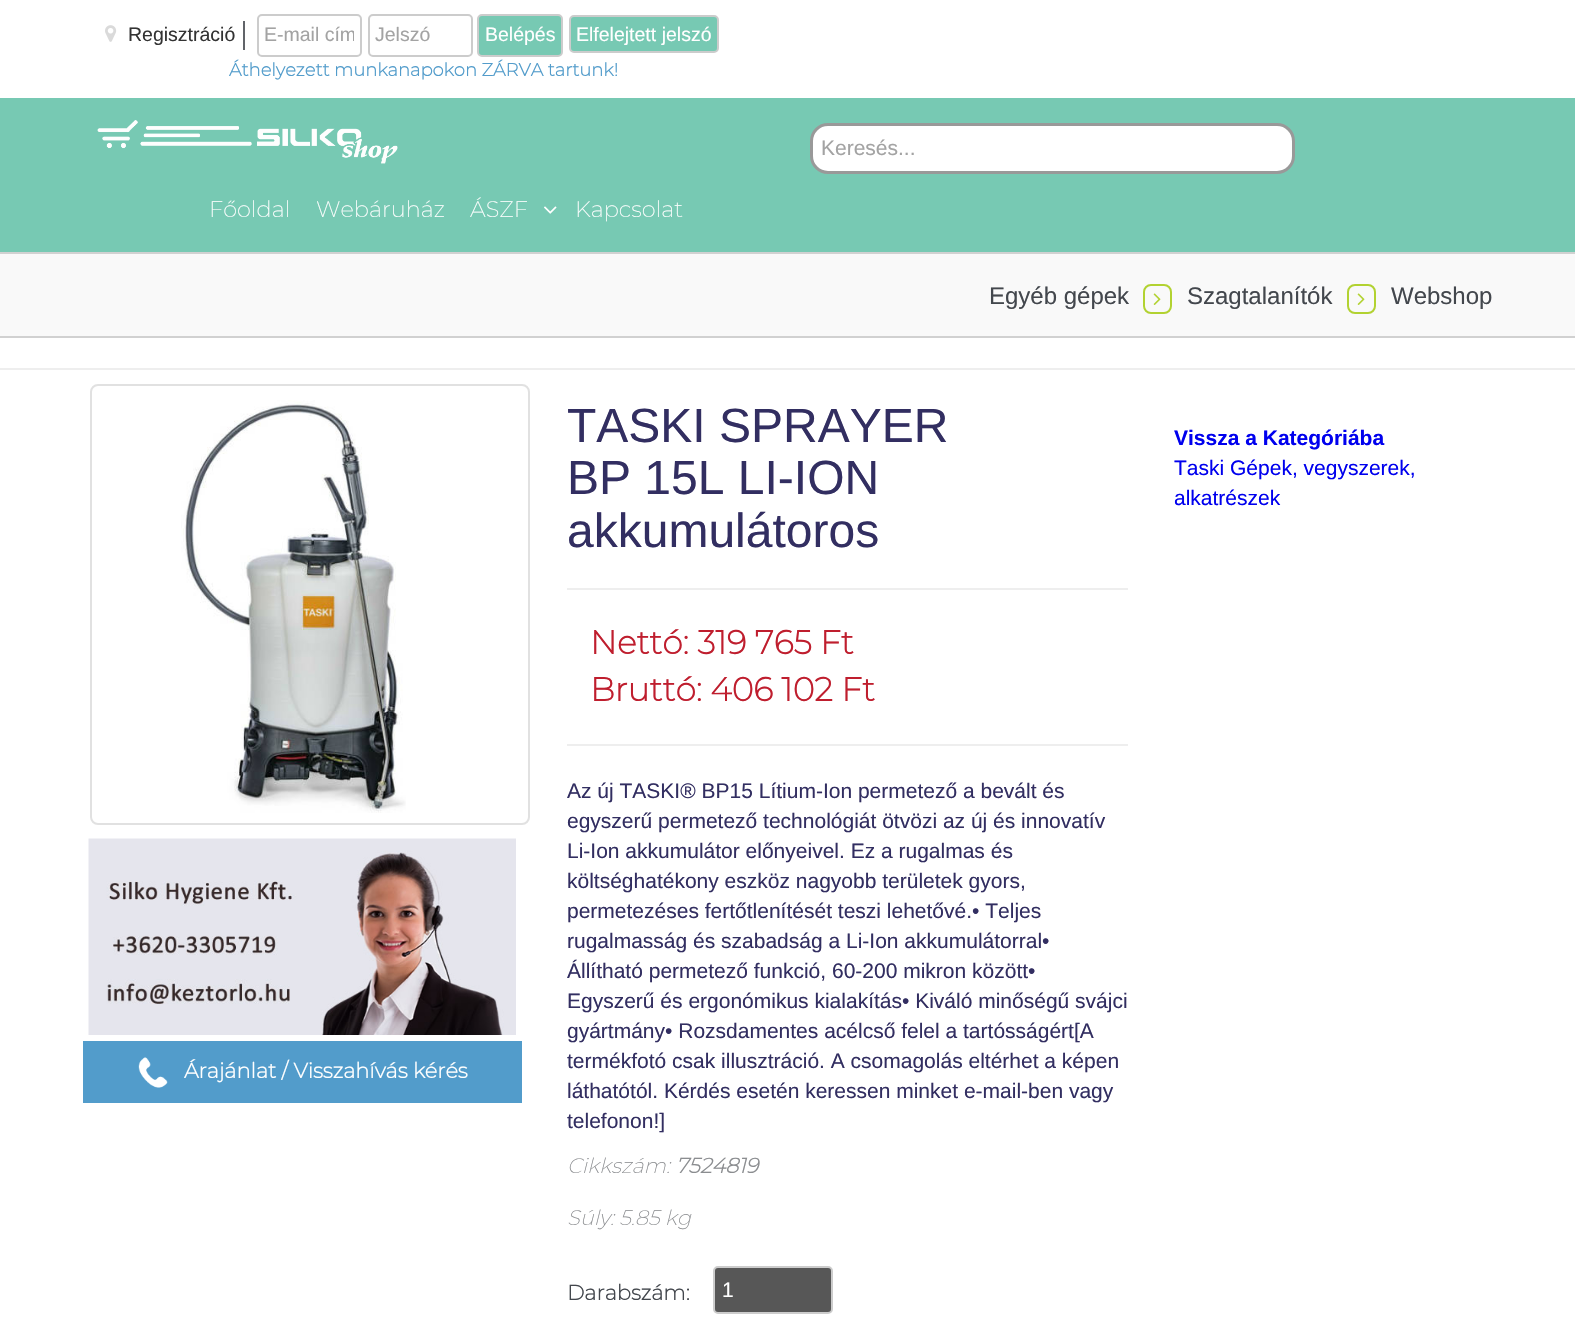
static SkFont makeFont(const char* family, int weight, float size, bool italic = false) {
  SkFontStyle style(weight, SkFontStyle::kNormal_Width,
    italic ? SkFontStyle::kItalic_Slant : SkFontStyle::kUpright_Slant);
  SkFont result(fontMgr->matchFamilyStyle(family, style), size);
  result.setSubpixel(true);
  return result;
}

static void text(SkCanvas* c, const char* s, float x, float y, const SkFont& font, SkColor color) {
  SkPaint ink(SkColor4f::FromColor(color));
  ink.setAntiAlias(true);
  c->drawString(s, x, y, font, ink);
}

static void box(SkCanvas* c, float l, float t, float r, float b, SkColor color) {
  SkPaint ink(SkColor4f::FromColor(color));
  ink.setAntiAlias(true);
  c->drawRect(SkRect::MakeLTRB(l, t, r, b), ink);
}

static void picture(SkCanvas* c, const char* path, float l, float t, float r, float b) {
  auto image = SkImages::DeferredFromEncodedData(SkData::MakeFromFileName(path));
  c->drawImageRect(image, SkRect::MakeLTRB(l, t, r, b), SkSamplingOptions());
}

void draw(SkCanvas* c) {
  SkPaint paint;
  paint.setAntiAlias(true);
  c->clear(0xffffffff);
  box(c, 0, 98, 1575, 252, 0xff77c9b3);
  box(c, 243, 21, 245, 50, 0xff616469);
  picture(c, "img_01.png", 105, 25, 117, 42);
  SkFont face1 = makeFont("Liberation Sans", 400, 19.5f);
  text(c, "Regisztráció", 128, 41, face1, 0xff333333);
  paint.setStyle(SkPaint::kStroke_Style);
  paint.setStrokeWidth(2);
  paint.setColor(0xffcccccc);
  c->drawRoundRect(SkRect::MakeLTRB(258, 15, 361, 56), 4, 4, paint);
  c->save();
  c->clipRect(SkRect::MakeLTRB(264, 23, 354, 45));
  text(c, "E-mail cím", 264, 41, face1, 0xffa3a3a3);
  c->restore();
  c->drawRoundRect(SkRect::MakeLTRB(369, 15, 472, 56), 4, 4, paint);
  text(c, "Jelszó", 375, 41, face1, 0xffa3a3a3);
  paint.setStyle(SkPaint::kFill_Style);
  paint.setColor(0xff77c9b3);
  c->drawRoundRect(SkRect::MakeLTRB(478, 15, 562, 56), 4, 4, paint);
  paint.setStyle(SkPaint::kStroke_Style);
  paint.setColor(0xffcccccc);
  c->drawRoundRect(SkRect::MakeLTRB(478, 15, 562, 56), 4, 4, paint);
  text(c, "Belépés", 485, 41, face1, 0xffffffff);
  paint.setStyle(SkPaint::kFill_Style);
  paint.setColor(0xff77c9b3);
  c->drawRoundRect(SkRect::MakeLTRB(570, 16, 718, 52), 4, 4, paint);
  paint.setStyle(SkPaint::kStroke_Style);
  paint.setColor(0xffcccccc);
  c->drawRoundRect(SkRect::MakeLTRB(570, 16, 718, 52), 4, 4, paint);
  text(c, "Elfelejtett jelszó", 576, 41, face1, 0xffffffff);
  SkFont face2 = makeFont("Montserrat", 700, 18);
  text(c, "Áthelyezett munkanapokon ZÁRVA tartunk!", 229, 76, face2, 0xff529ccb);
  picture(c, "img_02.png", 97, 120, 398, 164);
  paint.setStyle(SkPaint::kFill_Style);
  paint.setColor(0xffffffff);
  c->drawRoundRect(SkRect::MakeLTRB(811.5f, 124.5f, 1293.5f, 172.5f), 16.5f, 16.5f, paint);
  paint.setStyle(SkPaint::kStroke_Style);
  paint.setStrokeWidth(3);
  paint.setColor(0xff999999);
  c->drawRoundRect(SkRect::MakeLTRB(811.5f, 124.5f, 1293.5f, 172.5f), 16.5f, 16.5f, paint);
  SkFont face3 = makeFont("Liberation Sans", 400, 21);
  text(c, "Keresés...", 821, 155, face3, 0xffa3a3a3);
  SkFont face4 = makeFont("Montserrat", 200, 22.5f);
  text(c, "Főoldal", 209, 217, face4, 0xffffffff);
  text(c, "Webáruház", 316, 217, face4, 0xffffffff);
  text(c, "ÁSZF", 470, 217, face4, 0xffffffff);
  picture(c, "img_03.png", 544, 206, 557, 214);
  text(c, "Kapcsolat", 575, 217, face4, 0xffffffff);
  box(c, 0, 254, 1575, 336, 0xfff9f9f9);
  box(c, 0, 252, 1575, 254, 0xffd1d1d1);
  box(c, 0, 336, 1575, 338, 0xffd1d1d1);
  SkFont face5 = makeFont("Liberation Sans", 400, 24);
  text(c, "Egyéb gépek", 989, 304, face5, 0xff43474d);
  paint.setStrokeWidth(2);
  paint.setColor(0xffb2d231);
  c->drawRoundRect(SkRect::MakeLTRB(1144, 285, 1171, 313), 7, 7, paint);
  picture(c, "img_04.png", 1153, 293, 1161, 305);
  text(c, "Szagtalanítók", 1187, 304, face5, 0xff43474d);
  c->drawRoundRect(SkRect::MakeLTRB(1348, 285, 1375, 313), 7, 7, paint);
  picture(c, "img_04.png", 1357, 293, 1365, 305);
  text(c, "Webshop", 1391, 304, face5, 0xff43474d);
  box(c, 0, 368, 1575, 370, 0xffeeeeee);
  SkFont face6 = makeFont("Liberation Sans", 400, 48);
  text(c, "TASKI SPRAYER", 567, 442, face6, 0xff322e61);
  text(c, "BP 15L LI-ION", 567, 494, face6, 0xff322e61);
  text(c, "akkumulátoros", 567, 547, face6, 0xff322e61);
  box(c, 567, 588, 1128, 590, 0xffeeeeee);
  SkFont face7 = makeFont("Montserrat", 700, 33);
  text(c, "Nettó: 319 765 Ft", 590, 654, face7, 0xffbf1e2e);
  text(c, "Bruttó: 406 102 Ft", 590, 701, face7, 0xffbf1e2e);
  box(c, 567, 744, 1128, 746, 0xffeeeeee);
  text(c, "Az új TASKI® BP15 Lítium-Ion permetező a bevált és", 567, 798, face3, 0xff322e61);
  text(c, "egyszerű permetező technológiát ötvözi az új és innovatív", 567, 828, face3, 0xff322e61);
  text(c, "Li-Ion akkumulátor előnyeivel. Ez a rugalmas és", 567, 858, face3, 0xff322e61);
  text(c, "költséghatékony eszköz nagyobb területek gyors,", 567, 888, face3, 0xff322e61);
  text(c, "permetezéses fertőtlenítését teszi lehetővé.• Teljes", 567, 918, face3, 0xff322e61);
  text(c, "rugalmasság és szabadság a Li-Ion akkumulátorral•", 567, 948, face3, 0xff322e61);
  text(c, "Állítható permetező funkció, 60-200 mikron között•", 567, 978, face3, 0xff322e61);
  text(c, "Egyszerű és ergonómikus kialakítás• Kiváló minőségű svájci", 567, 1008, face3, 0xff322e61);
  text(c, "gyártmány• Rozsdamentes acélcső felel a tartósságért[A", 567, 1038, face3, 0xff322e61);
  text(c, "termékfotó csak illusztráció. A csomagolás eltérhet a képen", 567, 1068, face3, 0xff322e61);
  text(c, "láthatótól. Kérdés esetén keressen minket e-mail-ben vagy", 567, 1098, face3, 0xff322e61);
  text(c, "telefonon!]", 567, 1128, face3, 0xff322e61);
  SkFont face8 = makeFont("Montserrat", 200, 21, true);
  text(c, "Cikkszám:", 567, 1173, face8, 0xff8b8d90);
  SkFont face9 = makeFont("Montserrat", 700, 21, true);
  text(c, "7524819", 676, 1173, face9, 0xff8b8d90);
  text(c, "Súly: 5.85 kg", 567, 1225, face8, 0xff8b8d90);
  SkFont face10 = makeFont("Montserrat", 700, 21);
  text(c, "Darabszám:", 567, 1300, face10, 0xff43474d);
  paint.setStyle(SkPaint::kFill_Style);
  paint.setColor(0xff575757);
  c->drawRoundRect(SkRect::MakeLTRB(714, 1267, 832, 1313), 4, 4, paint);
  paint.setStyle(SkPaint::kStroke_Style);
  paint.setColor(0xffcccccc);
  c->drawRoundRect(SkRect::MakeLTRB(714, 1267, 832, 1313), 4, 4, paint);
  text(c, "1", 722, 1297, face3, 0xffffffff);
  SkFont face11 = makeFont("Liberation Sans", 700, 21);
  text(c, "Vissza a Kategóriába", 1174, 445, face11, 0xff0000ee);
  text(c, "Taski Gépek, vegyszerek,", 1174, 475, face3, 0xff0000ee);
  text(c, "alkatrészek", 1174, 505, face3, 0xff0000ee);
  paint.setColor(0xffe1e1e1);
  c->drawRoundRect(SkRect::MakeLTRB(91, 385, 529, 824), 7, 7, paint);
  picture(c, "img_05.png", 181, 400, 406, 813);
  box(c, 83, 1041, 522, 1103, 0xff529ccb);
  picture(c, "img_06.png", 88, 838, 516, 1035);
  picture(c, "img_07.png", 138, 1057, 168, 1088);
  text(c, "Árajánlat / Visszahívás kérés", 184, 1078, face10, 0xffffffff);
}
